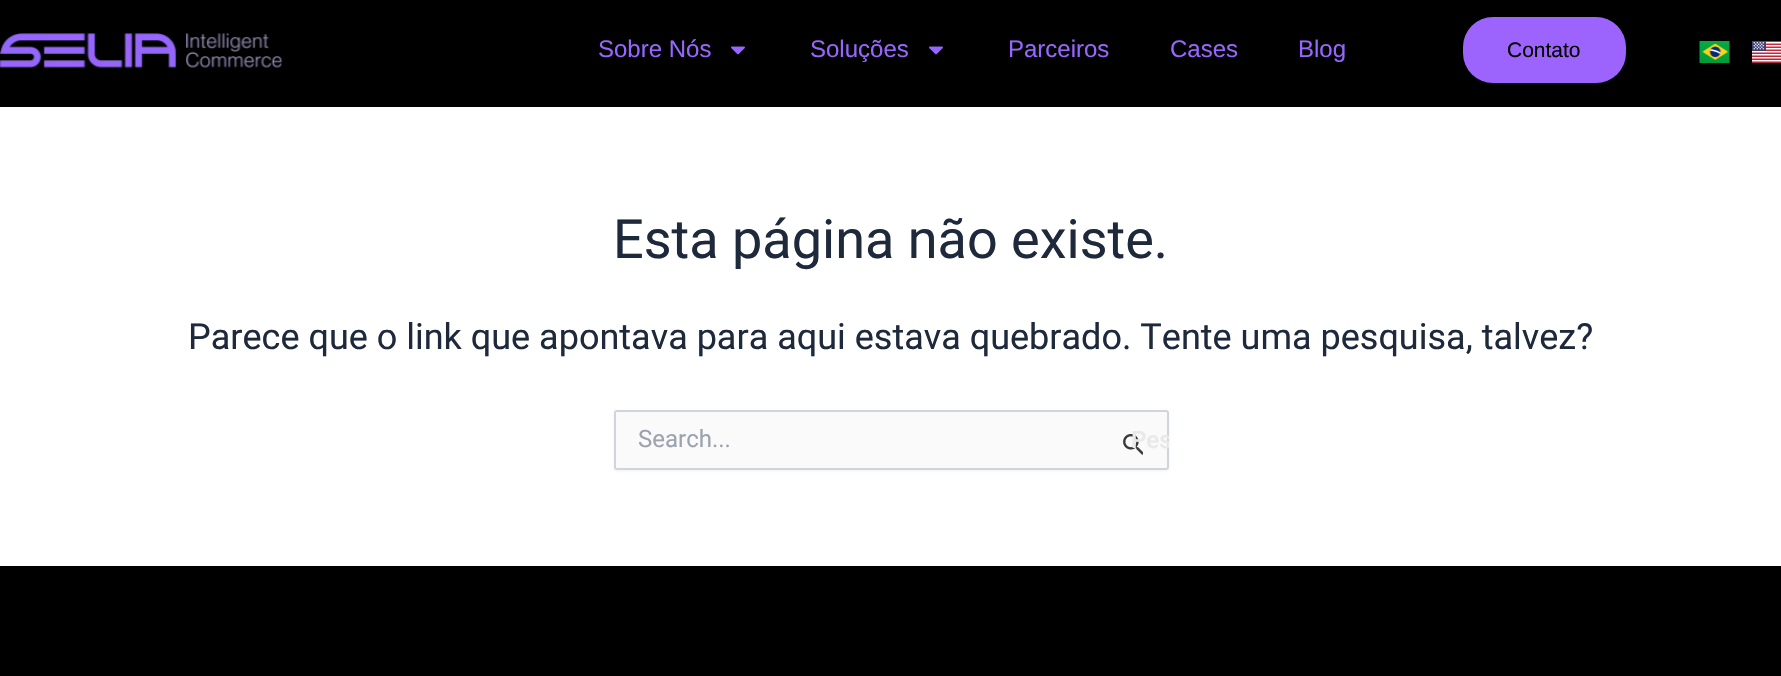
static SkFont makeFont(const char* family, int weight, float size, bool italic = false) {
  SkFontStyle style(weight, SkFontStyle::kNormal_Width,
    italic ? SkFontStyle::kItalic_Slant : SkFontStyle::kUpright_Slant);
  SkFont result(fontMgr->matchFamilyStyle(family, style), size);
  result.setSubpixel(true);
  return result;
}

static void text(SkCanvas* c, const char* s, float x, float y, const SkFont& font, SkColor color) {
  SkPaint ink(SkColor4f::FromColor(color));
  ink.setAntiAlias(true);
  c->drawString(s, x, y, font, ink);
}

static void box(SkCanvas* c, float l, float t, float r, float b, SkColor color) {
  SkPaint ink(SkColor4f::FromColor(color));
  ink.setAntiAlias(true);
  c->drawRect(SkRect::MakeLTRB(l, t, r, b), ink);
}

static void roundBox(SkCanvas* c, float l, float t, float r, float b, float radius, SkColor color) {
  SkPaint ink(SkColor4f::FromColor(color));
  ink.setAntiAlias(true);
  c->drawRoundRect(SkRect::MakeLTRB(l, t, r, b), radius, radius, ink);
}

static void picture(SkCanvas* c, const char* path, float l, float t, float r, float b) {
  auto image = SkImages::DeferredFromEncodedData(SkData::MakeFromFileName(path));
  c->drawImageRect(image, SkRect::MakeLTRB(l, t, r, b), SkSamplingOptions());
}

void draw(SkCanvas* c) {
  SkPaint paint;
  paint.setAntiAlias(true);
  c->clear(0xffffffff);
  box(c, 0, 0, 1781, 107, 0xff000000);
  picture(c, "img_01.png", 0, 33, 282, 68);
  SkFont face1 = makeFont("Liberation Sans", 400, 24);
  text(c, "Sobre Nós", 598, 57, face1, 0xff9866ff);
  picture(c, "img_02.png", 731, 46, 745, 55);
  text(c, "Soluções", 810, 57, face1, 0xff9866ff);
  picture(c, "img_02.png", 929, 46, 943, 55);
  text(c, "Parceiros", 1008, 57, face1, 0xff9866ff);
  text(c, "Cases", 1170, 57, face1, 0xff9866ff);
  text(c, "Blog", 1298, 57, face1, 0xff9866ff);
  roundBox(c, 1463, 17, 1626, 83, 30, 0xff9c64fc);
  SkFont face2 = makeFont("Liberation Sans", 400, 21);
  text(c, "Contato", 1507, 57, face2, 0xff000000);
  picture(c, "img_03.png", 1699, 41, 1730, 63);
  picture(c, "img_04.png", 1752, 41, 1781, 63);
  SkFont face3 = makeFont("Roboto", 400, 54);
  text(c, "Esta página não existe.", 613, 258, face3, 0xff1e293b);
  SkFont face4 = makeFont("Roboto", 400, 36);
  text(c, "Parece que o link que apontava para aqui estava quebrado. Tente uma pesquisa, talvez?", 188, 349, face4, 0xff1e293b);
  paint.setColor(0x0d000000);
  paint.setMaskFilter(SkMaskFilter::MakeBlur(kNormal_SkBlurStyle, 1.5f));
  c->drawRoundRect(SkRect::MakeLTRB(614, 411, 1169, 471), 3, 3, paint);
  paint.setMaskFilter(nullptr);
  paint.setColor(0xfffafafa);
  c->drawRoundRect(SkRect::MakeLTRB(615, 411, 1168, 469), 2, 2, paint);
  paint.setStyle(SkPaint::kStroke_Style);
  paint.setStrokeWidth(2);
  paint.setColor(0xffd1d5db);
  c->drawRoundRect(SkRect::MakeLTRB(615, 411, 1168, 469), 2, 2, paint);
  SkFont face5 = makeFont("Roboto", 400, 24);
  text(c, "Search...", 638, 447, face5, 0xff9ca3af);
  picture(c, "img_05.png", 1123, 434, 1143, 455);
  c->save();
  c->clipPath(SkPathBuilder().moveTo(1104, 410).lineTo(1166, 410).cubicTo(1167.5f, 410, 1169, 411.5f, 1169, 413).lineTo(1169, 470).cubicTo(1169, 471.5f, 1167.5f, 473, 1166, 473).lineTo(1104, 473).cubicTo(1102.5f, 473, 1101, 471.5f, 1101, 470).lineTo(1101, 413).cubicTo(1101, 411.5f, 1102.5f, 410, 1104, 410).close().detach(), true);
  SkFont face6 = makeFont("Roboto", 500, 24);
  text(c, "Pes", 1131, 448, face6, 0xffe9e9e9);
  c->restore();
  box(c, 0, 566, 1781, 676, 0xff000000);
}
